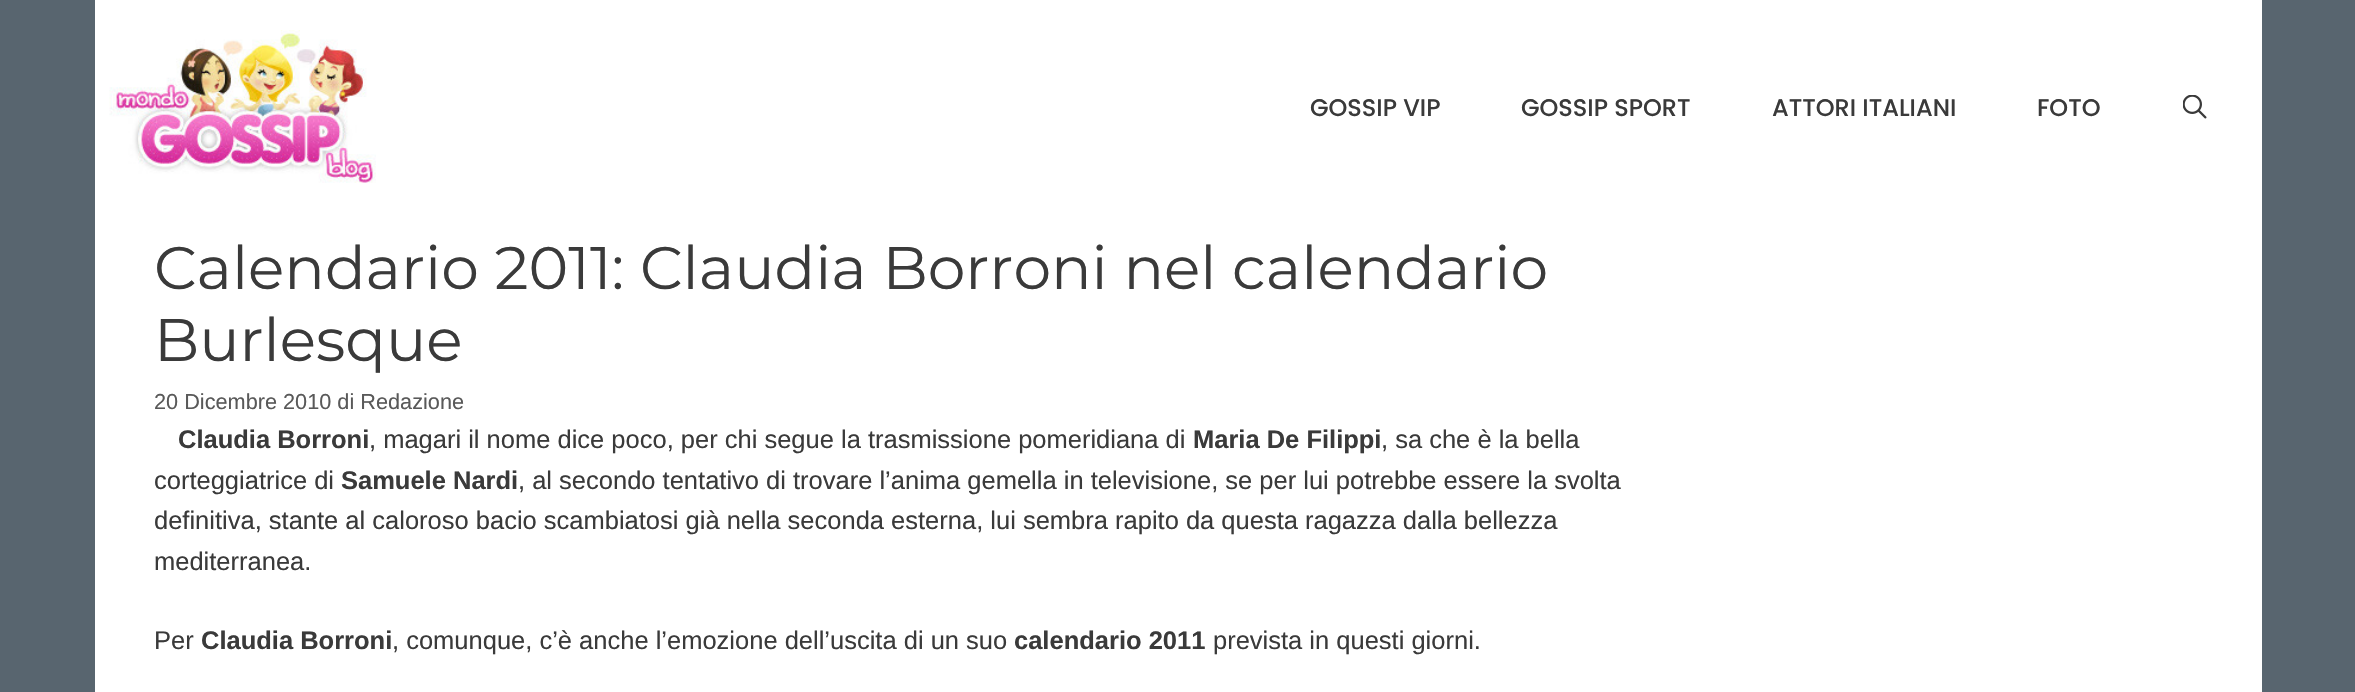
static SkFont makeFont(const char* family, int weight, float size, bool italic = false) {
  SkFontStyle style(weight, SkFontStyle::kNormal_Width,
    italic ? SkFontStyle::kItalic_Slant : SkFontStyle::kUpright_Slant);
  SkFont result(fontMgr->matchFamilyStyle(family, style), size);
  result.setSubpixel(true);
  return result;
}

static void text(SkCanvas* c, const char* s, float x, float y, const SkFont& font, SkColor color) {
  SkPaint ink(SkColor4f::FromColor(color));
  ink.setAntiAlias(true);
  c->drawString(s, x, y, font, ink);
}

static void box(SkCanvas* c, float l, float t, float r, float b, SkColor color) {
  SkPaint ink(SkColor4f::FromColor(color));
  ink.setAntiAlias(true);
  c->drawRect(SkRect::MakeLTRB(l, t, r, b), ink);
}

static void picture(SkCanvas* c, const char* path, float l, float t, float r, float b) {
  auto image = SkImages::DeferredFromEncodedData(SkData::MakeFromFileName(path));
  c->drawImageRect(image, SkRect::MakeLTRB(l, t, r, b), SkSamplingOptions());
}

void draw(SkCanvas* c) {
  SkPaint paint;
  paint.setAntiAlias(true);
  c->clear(0xff58656f);
  box(c, 95, 0, 2262, 692, 0xffffffff);
  picture(c, "img_01.png", 109, 30, 376, 183);
  SkFont face1 = makeFont("Poppins", 500, 24);
  text(c, "GOSSIP VIP", 1310, 116, face1, 0xff3a3a3a);
  text(c, "GOSSIP SPORT", 1521, 116, face1, 0xff3a3a3a);
  text(c, "ATTORI ITALIANI", 1772, 116, face1, 0xff3a3a3a);
  text(c, "FOTO", 2037, 116, face1, 0xff3a3a3a);
  picture(c, "img_02.png", 2183, 95, 2207, 119);
  SkFont face2 = makeFont("Montserrat", 400, 60);
  text(c, "Calendario 2011: Claudia Borroni nel calendario", 154, 289, face2, 0xff3a3a3a);
  text(c, "Burlesque", 154, 361, face2, 0xff3a3a3a);
  SkFont face3 = makeFont("Liberation Sans", 400, 21.7f);
  text(c, "20 Dicembre 2010 di Redazione", 154, 409, face3, 0xff595959);
  SkFont face4 = makeFont("Liberation Sans", 700, 25.5f);
  text(c, "Claudia Borroni", 178, 448, face4, 0xff3a3a3a);
  SkFont face5 = makeFont("Liberation Sans", 400, 25.5f);
  text(c, ", magari il nome dice poco, per chi segue la trasmissione pomeridiana di", 369, 448, face5, 0xff3a3a3a);
  text(c, "Maria De Filippi", 1193, 448, face4, 0xff3a3a3a);
  text(c, ", sa che è la bella", 1381, 448, face5, 0xff3a3a3a);
  text(c, "corteggiatrice di", 154, 489, face5, 0xff3a3a3a);
  text(c, "Samuele Nardi", 341, 489, face4, 0xff3a3a3a);
  text(c, ", al secondo tentativo di trovare l’anima gemella in televisione, se per lui potrebbe essere la svolta", 518, 489, face5, 0xff3a3a3a);
  text(c, "definitiva, stante al caloroso bacio scambiatosi già nella seconda esterna, lui sembra rapito da questa ragazza dalla bellezza", 154, 529, face5, 0xff3a3a3a);
  text(c, "mediterranea.", 154, 570, face5, 0xff3a3a3a);
  text(c, "Per", 154, 649, face5, 0xff3a3a3a);
  text(c, "Claudia Borroni", 201, 649, face4, 0xff3a3a3a);
  text(c, ", comunque, c’è anche l’emozione dell’uscita di un suo", 392, 649, face5, 0xff3a3a3a);
  text(c, "calendario 2011", 1014, 649, face4, 0xff3a3a3a);
  text(c, "prevista in questi giorni.", 1213, 649, face5, 0xff3a3a3a);
}
